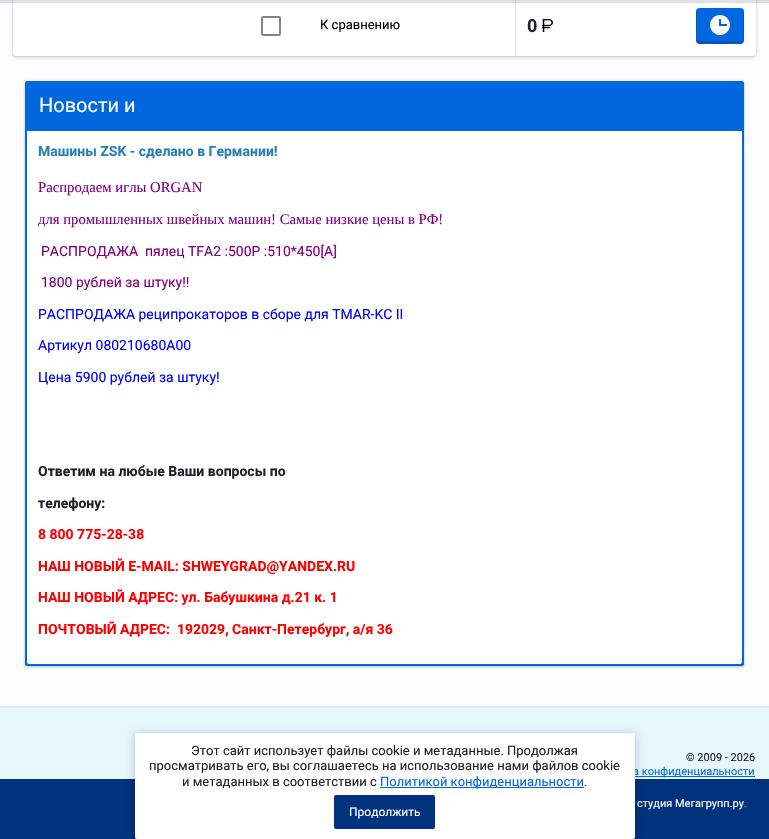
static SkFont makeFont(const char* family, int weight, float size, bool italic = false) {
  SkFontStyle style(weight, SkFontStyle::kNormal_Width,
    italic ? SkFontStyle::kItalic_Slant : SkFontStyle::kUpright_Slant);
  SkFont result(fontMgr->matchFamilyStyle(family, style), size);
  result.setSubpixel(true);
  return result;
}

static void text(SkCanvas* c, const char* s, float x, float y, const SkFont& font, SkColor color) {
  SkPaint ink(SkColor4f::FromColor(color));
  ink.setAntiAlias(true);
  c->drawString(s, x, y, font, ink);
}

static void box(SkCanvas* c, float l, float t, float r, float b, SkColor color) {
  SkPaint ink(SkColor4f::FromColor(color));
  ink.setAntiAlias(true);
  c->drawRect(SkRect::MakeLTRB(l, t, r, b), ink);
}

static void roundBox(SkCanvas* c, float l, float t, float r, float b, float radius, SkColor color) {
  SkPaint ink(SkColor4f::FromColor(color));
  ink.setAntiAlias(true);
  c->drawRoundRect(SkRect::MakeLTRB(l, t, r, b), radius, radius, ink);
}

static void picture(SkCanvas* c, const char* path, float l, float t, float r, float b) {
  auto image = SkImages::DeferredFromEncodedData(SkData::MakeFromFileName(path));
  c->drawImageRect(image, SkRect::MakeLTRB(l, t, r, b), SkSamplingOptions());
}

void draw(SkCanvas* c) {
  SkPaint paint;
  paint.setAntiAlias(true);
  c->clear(0xfff8fdff);
  roundBox(c, 0, -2, 769, 706, 2, 0xfffbfcfd);
  paint.setColor(0x3d000000);
  paint.setMaskFilter(SkMaskFilter::MakeBlur(kNormal_SkBlurStyle, 1.5f));
  c->drawRoundRect(SkRect::MakeLTRB(13, -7, 756, 57), 2, 2, paint);
  paint.setMaskFilter(nullptr);
  roundBox(c, 13, -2, 756, 56, 2, 0xffffffff);
  box(c, 515, 0, 516, 56, 0xffe6e6e6);
  box(c, 0, 0, 769, 3, 0x1f000000);
  paint.setStyle(SkPaint::kStroke_Style);
  paint.setStrokeWidth(2);
  paint.setColor(0xff848484);
  c->drawRoundRect(SkRect::MakeLTRB(262, 17, 280, 35), 1, 1, paint);
  SkFont face1 = makeFont("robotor", 400, 13);
  text(c, "К сравнению", 320, 29, face1, 0xff000000);
  SkFont face2 = makeFont("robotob", 700, 18);
  text(c, "0", 527, 32, face2, 0xff20202a);
  picture(c, "img_01.png", 542, 19, 553, 32);
  roundBox(c, 696, 8, 744, 44, 4, 0xff0167de);
  paint.setStyle(SkPaint::kFill_Style);
  paint.setColor(0x29000000);
  c->drawPath(SkPathBuilder().moveTo(697, 9).cubicTo(696, 10, 696, 11, 696, 12).lineTo(696, 40).cubicTo(696, 42, 698, 44, 700, 44).lineTo(740, 44).cubicTo(742, 44, 744, 42, 744, 40).lineTo(744, 12).cubicTo(744, 11, 744, 10, 743, 9).lineTo(743, 29).cubicTo(743, 41, 746, 41, 733, 41).lineTo(707, 41).cubicTo(694, 41, 697, 41, 697, 29).close().detach(), paint);
  picture(c, "img_02.png", 710, 15, 730, 35);
  paint.setColor(0x3d000000);
  paint.setMaskFilter(SkMaskFilter::MakeBlur(kNormal_SkBlurStyle, 1.5f));
  c->drawRoundRect(SkRect::MakeLTRB(25, 82, 744, 667), 2, 2, paint);
  paint.setMaskFilter(nullptr);
  roundBox(c, 25, 81, 744, 666, 2, 0xff0167de);
  SkFont face3 = makeFont("robotor", 400, 20);
  text(c, "Новости и", 39, 112, face3, 0xffffffff);
  paint.setColor(0xffffffff);
  c->drawPath(SkPathBuilder().moveTo(27, 131).lineTo(742, 131).lineTo(742, 662).cubicTo(742, 663, 741, 664, 740, 664).lineTo(29, 664).cubicTo(28, 664, 27, 663, 27, 662).close().detach(), paint);
  SkFont face4 = makeFont("robotob", 700, 14);
  text(c, "Машины ZSK - сделано в Германии!", 38, 156, face4, 0xff2980b9);
  SkFont face5 = makeFont("Liberation Serif", 400, 14.7f);
  text(c, "Распродаем иглы ORGAN", 38, 192, face5, 0xff800080);
  text(c, "для промышленных швейных машин! Самые низкие цены в РФ!", 38, 224, face5, 0xff800080);
  SkFont face6 = makeFont("robotor", 400, 14);
  text(c, "РАСПРОДАЖА  пялец TFA2 :500P :510*450[A]", 41, 256, face6, 0xff800080);
  text(c, "1800 рублей за штуку!!", 41, 287, face6, 0xff800080);
  text(c, "РАСПРОДАЖА реципрокаторов в сборе для TMAR-KC II", 38, 319, face6, 0xff0000ff);
  text(c, "Артикул 080210680A00", 38, 350, face6, 0xff0000ff);
  text(c, "Цена 5900 рублей за штуку!", 38, 382, face6, 0xff0000ff);
  text(c, "Ответим на любые Ваши вопросы по", 38, 476, face4, 0xff20202a);
  text(c, "телефону:", 38, 508, face4, 0xff20202a);
  text(c, "8 800 775-28-38", 38, 539, face4, 0xffff0000);
  text(c, "НАШ НОВЫЙ E-MAIL: SHWEYGRAD@YANDEX.RU", 38, 571, face4, 0xffff0000);
  text(c, "НАШ НОВЫЙ АДРЕС: ул. Бабушкина д.21 к. 1", 38, 602, face4, 0xffff0000);
  text(c, "ПОЧТОВЫЙ АДРЕС:  192029, Санкт-Петербург, а/я 36", 38, 634, face4, 0xffff0000);
  box(c, 0, 708, 769, 779, 0xffe7f7fe);
  box(c, 0, 706, 769, 708, 0xffd9e8ef);
  SkFont face7 = makeFont("robotor", 400, 11);
  text(c, "© 2009 - 2026", 686, 761, face7, 0xff20202a);
  box(c, 635, 776, 755, 777, 0xff0167de);
  text(c, "а конфиденциальности", 633, 775, face7, 0xff0167de);
  box(c, 0, 779, 769, 839, 0xff00327d);
  text(c, "студия Мегагрупп.ру.", 637, 807, face7, 0xffffffff);
  paint.setColor(0x3b000000);
  paint.setMaskFilter(SkMaskFilter::MakeBlur(kNormal_SkBlurStyle, 5));
  c->drawRoundRect(SkRect::MakeLTRB(135, 734, 635, 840), 2, 2, paint);
  paint.setMaskFilter(nullptr);
  roundBox(c, 135, 733, 635, 839, 2, 0xffffffff);
  text(c, "Этот сайт использует файлы cookie и метаданные. Продолжая", 191, 755, face1, 0xff20202a);
  text(c, "просматривать его, вы соглашаетесь на использование нами файлов cookie", 149, 770, face1, 0xff20202a);
  text(c, "и метаданных в соответствии с", 182, 786, face1, 0xff20202a);
  box(c, 380, 787, 584, 788, 0xff0167de);
  text(c, "Политикой конфиденциальности", 380, 786, face1, 0xff0167de);
  text(c, ".", 584, 786, face1, 0xff20202a);
  roundBox(c, 334, 795, 435, 829, 2, 0xff00327d);
  SkFont face8 = makeFont("robotor", 400, 12);
  text(c, "Продолжить", 349, 816, face8, 0xffffffff);
}
